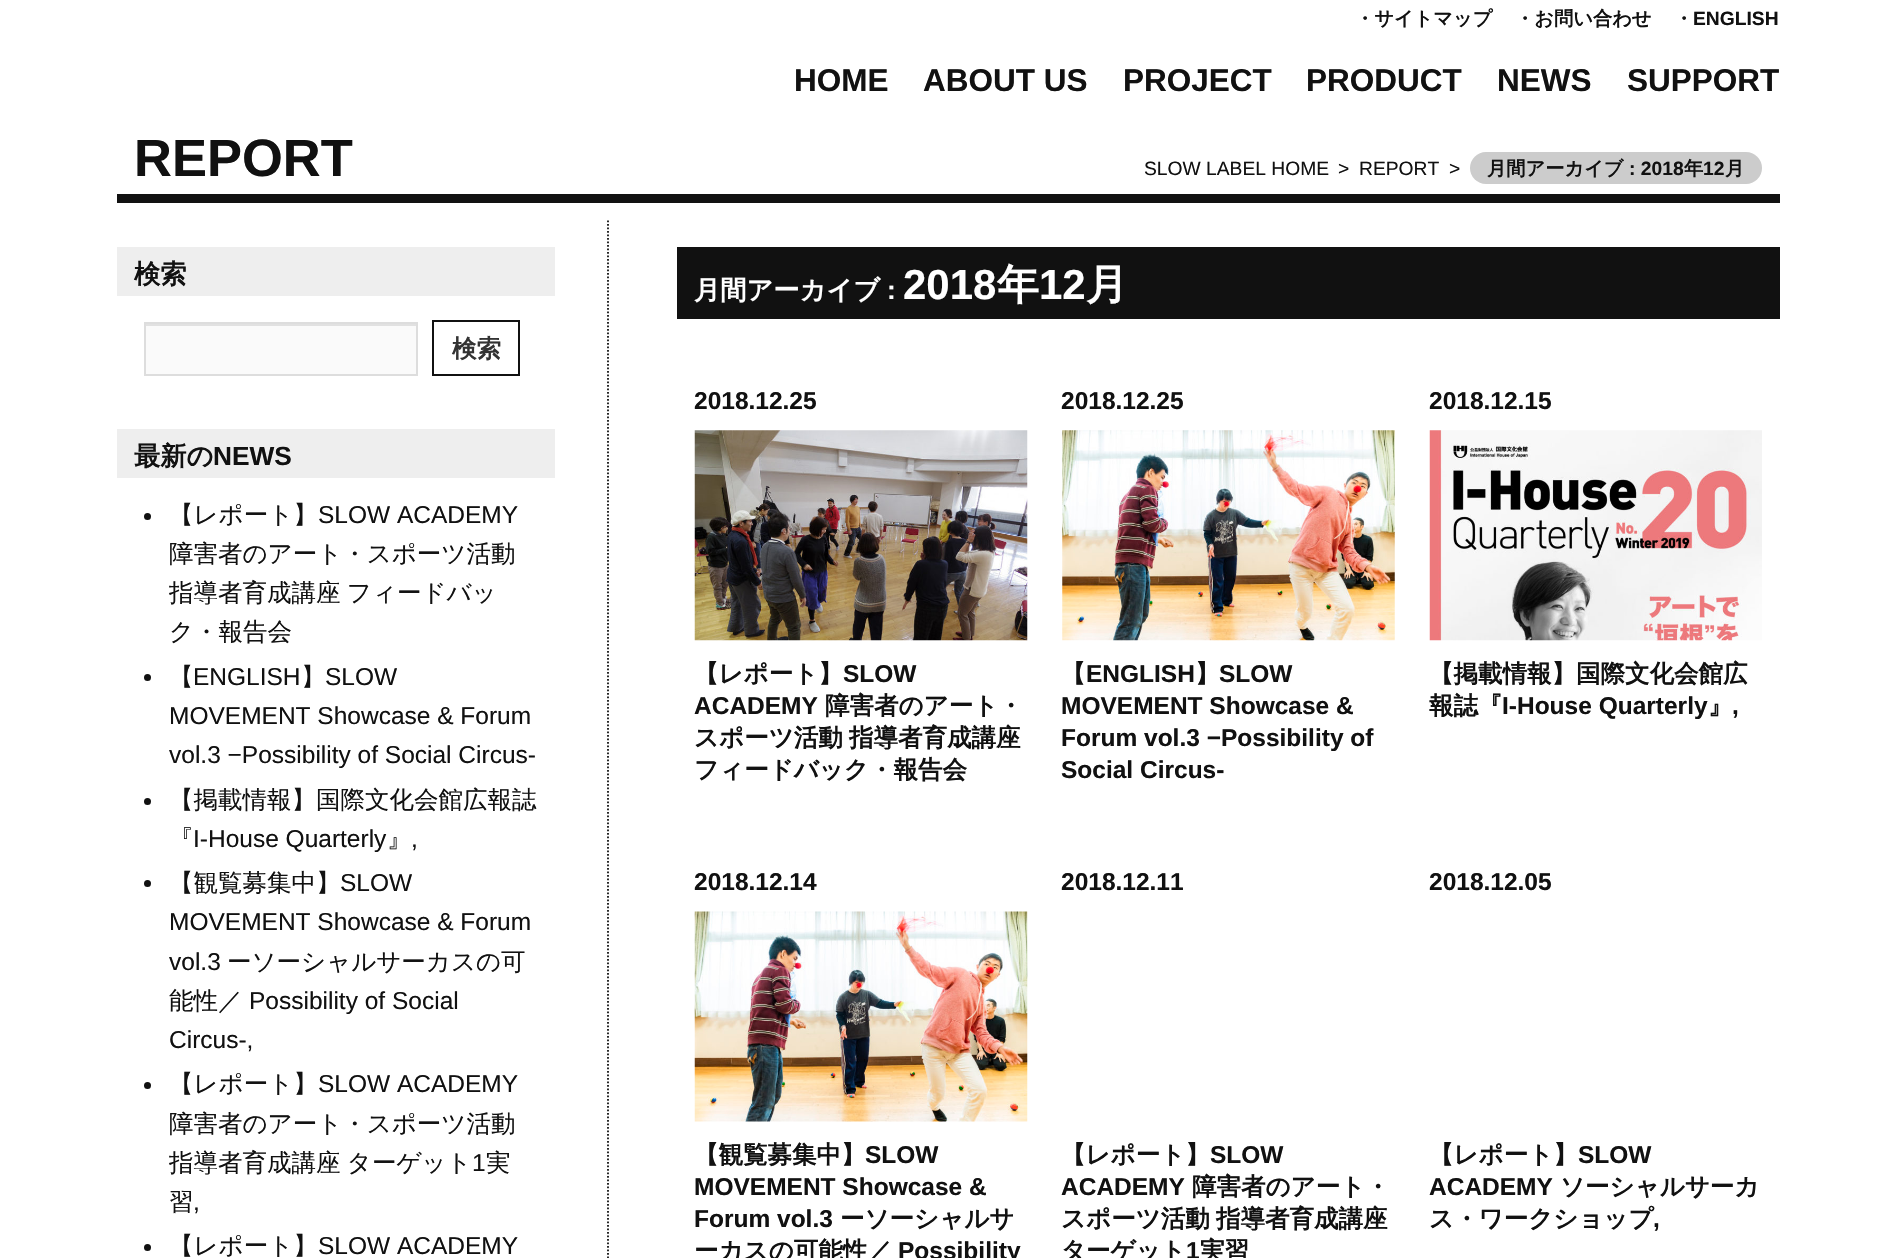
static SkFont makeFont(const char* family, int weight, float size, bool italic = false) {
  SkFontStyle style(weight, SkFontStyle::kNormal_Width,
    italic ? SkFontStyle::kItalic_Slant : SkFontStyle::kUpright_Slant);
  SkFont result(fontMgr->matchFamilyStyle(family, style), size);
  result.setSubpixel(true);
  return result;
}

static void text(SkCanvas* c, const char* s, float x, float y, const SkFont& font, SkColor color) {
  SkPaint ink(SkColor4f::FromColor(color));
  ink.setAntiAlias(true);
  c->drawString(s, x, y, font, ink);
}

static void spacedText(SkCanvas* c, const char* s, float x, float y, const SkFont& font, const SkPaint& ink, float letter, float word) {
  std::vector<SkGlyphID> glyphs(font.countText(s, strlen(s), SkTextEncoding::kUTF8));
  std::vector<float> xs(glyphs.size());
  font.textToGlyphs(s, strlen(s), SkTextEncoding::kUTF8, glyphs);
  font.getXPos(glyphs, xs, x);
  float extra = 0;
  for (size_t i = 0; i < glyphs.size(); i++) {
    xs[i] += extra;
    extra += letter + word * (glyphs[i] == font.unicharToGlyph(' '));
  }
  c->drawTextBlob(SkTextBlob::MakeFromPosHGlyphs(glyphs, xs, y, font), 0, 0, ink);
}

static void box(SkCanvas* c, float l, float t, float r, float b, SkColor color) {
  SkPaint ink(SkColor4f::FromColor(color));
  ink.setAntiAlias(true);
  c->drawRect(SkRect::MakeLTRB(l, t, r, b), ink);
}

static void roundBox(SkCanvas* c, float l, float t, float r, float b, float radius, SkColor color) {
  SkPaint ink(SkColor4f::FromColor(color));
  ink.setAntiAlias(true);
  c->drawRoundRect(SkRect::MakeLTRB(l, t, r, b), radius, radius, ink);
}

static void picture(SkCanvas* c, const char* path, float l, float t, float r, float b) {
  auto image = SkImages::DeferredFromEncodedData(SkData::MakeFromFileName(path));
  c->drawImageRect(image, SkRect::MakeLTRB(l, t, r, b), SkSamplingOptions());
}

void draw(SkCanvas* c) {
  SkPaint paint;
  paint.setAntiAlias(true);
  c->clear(0xffffffff);
  SkFont face1 = makeFont("WenQuanYi Zen Hei", 700, 19.25f);
  text(c, "・サイトマップ", 1355, 25, face1, 0xff111111);
  text(c, "・お問い合わせ", 1515, 25, face1, 0xff111111);
  text(c, "・", 1674, 25, face1, 0xff111111);
  SkFont face2 = makeFont("Liberation Sans", 700, 19.25f);
  text(c, "ENGLISH", 1693, 25, face2, 0xff111111);
  SkFont face3 = makeFont("Liberation Sans", 700, 31.5f);
  text(c, "HOME", 794, 91, face3, 0xff111111);
  text(c, "ABOUT US", 923, 91, face3, 0xff111111);
  text(c, "PROJECT", 1123, 91, face3, 0xff111111);
  text(c, "PRODUCT", 1306, 91, face3, 0xff111111);
  text(c, "NEWS", 1497, 91, face3, 0xff111111);
  text(c, "SUPPORT", 1627, 91, face3, 0xff111111);
  SkFont face4 = makeFont("Liberation Sans", 700, 52.5f);
  text(c, "REPORT", 134, 176, face4, 0xff111111);
  SkFont face5 = makeFont("Liberation Sans", 400, 19.25f);
  text(c, "SLOW LABEL HOME", 1144, 175, face5, 0xff111111);
  text(c, ">", 1338, 175, face5, 0xff111111);
  text(c, "REPORT", 1359, 175, face5, 0xff111111);
  text(c, ">", 1449, 175, face5, 0xff111111);
  roundBox(c, 1470, 152, 1762, 184, 16, 0xffcccccc);
  text(c, "月間アーカイブ", 1487, 175, face1, 0xff111111);
  text(c, ": 2018", 1629, 175, face2, 0xff111111);
  text(c, "年", 1684, 175, face1, 0xff111111);
  text(c, "12", 1703, 175, face2, 0xff111111);
  text(c, "月", 1725, 175, face1, 0xff111111);
  box(c, 117, 194, 1780, 203, 0xff111111);
  paint.setStyle(SkPaint::kStroke_Style);
  paint.setStrokeWidth(1.8f);
  paint.setColor(0xff111111);
  paint.setPathEffect(SkDashPathEffect::Make({{1.75f, 1.75f}}, 0));
  c->drawPath(SkPathBuilder().moveTo(608, 220.5f).lineTo(608, 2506).detach(), paint);
  paint.setPathEffect(nullptr);
  box(c, 117, 247, 555, 296, 0xffeeeeee);
  SkFont face6 = makeFont("WenQuanYi Zen Hei", 700, 26.25f);
  text(c, "検索", 134, 283, face6, 0xff111111);
  box(c, 146, 326, 416, 374, 0xfffafafa);
  box(c, 145, 324, 417, 326, 0xffe1e1e1);
  paint.setStrokeWidth(2);
  paint.setColor(0xffdddddd);
  c->drawRect(SkRect::MakeLTRB(145, 323, 417, 375), paint);
  paint.setColor(0xff111111);
  c->drawRect(SkRect::MakeLTRB(433, 321, 519, 375), paint);
  SkFont face7 = makeFont("WenQuanYi Zen Hei", 700, 24.5f);
  text(c, "検索", 452, 357, face7, 0xff333333);
  box(c, 117, 429, 555, 478, 0xffeeeeee);
  text(c, "最新の", 134, 465, face6, 0xff111111);
  SkFont face8 = makeFont("Liberation Sans", 700, 26.25f);
  text(c, "NEWS", 213, 465, face8, 0xff111111);
  paint.setStyle(SkPaint::kFill_Style);
  c->drawCircle(147.5f, 516.5f, 3.5f, paint);
  SkFont face9 = makeFont("WenQuanYi Zen Hei", 500, 24.5f);
  text(c, "【レポート】", 169, 523, face9, 0xff111111);
  SkFont face10 = makeFont("Liberation Sans", 400, 24.5f);
  text(c, "SLOW ACADEMY", 318, 523, face10, 0xff111111);
  text(c, "障害者のアート・スポーツ活動", 169, 562, face9, 0xff111111);
  spacedText(c, "指導者育成講座 フィードバッ", 169, 601, face9, paint, 0, -1);
  text(c, "ク・報告会", 169, 640, face9, 0xff111111);
  c->drawCircle(147.5f, 677.5f, 3.5f, paint);
  text(c, "【", 169, 685, face9, 0xff111111);
  text(c, "ENGLISH", 193, 685, face10, 0xff111111);
  text(c, "】", 301, 685, face9, 0xff111111);
  text(c, "SLOW", 325, 685, face10, 0xff111111);
  text(c, "MOVEMENT Showcase & Forum", 169, 724, face10, 0xff111111);
  text(c, "vol.3 −Possibility of Social Circus-", 169, 763, face10, 0xff111111);
  c->drawCircle(147.5f, 801.5f, 3.5f, paint);
  text(c, "【掲載情報】国際文化会館広報誌", 169, 808, face9, 0xff111111);
  text(c, "『", 169, 847, face9, 0xff111111);
  text(c, "I-House Quarterly", 193, 847, face10, 0xff111111);
  text(c, "』", 387, 847, face9, 0xff111111);
  text(c, ",", 411, 847, face10, 0xff111111);
  c->drawCircle(147.5f, 883.5f, 3.5f, paint);
  text(c, "【観覧募集中】", 169, 891, face9, 0xff111111);
  text(c, "SLOW", 340, 891, face10, 0xff111111);
  text(c, "MOVEMENT Showcase & Forum", 169, 930, face10, 0xff111111);
  text(c, "vol.3", 169, 970, face10, 0xff111111);
  text(c, "ーソーシャルサーカスの可", 227, 970, face9, 0xff111111);
  text(c, "能性／", 169, 1009, face9, 0xff111111);
  text(c, "Possibility of Social", 249, 1009, face10, 0xff111111);
  text(c, "Circus-,", 169, 1048, face10, 0xff111111);
  c->drawCircle(147.5f, 1085.5f, 3.5f, paint);
  text(c, "【レポート】", 169, 1092, face9, 0xff111111);
  text(c, "SLOW ACADEMY", 318, 1092, face10, 0xff111111);
  text(c, "障害者のアート・スポーツ活動", 169, 1132, face9, 0xff111111);
  spacedText(c, "指導者育成講座 ターゲット", 169, 1171, face9, paint, 0, -1);
  text(c, "1", 472, 1171, face10, 0xff111111);
  text(c, "実", 486, 1171, face9, 0xff111111);
  text(c, "習", 169, 1210, face9, 0xff111111);
  text(c, ",", 193, 1210, face10, 0xff111111);
  c->drawCircle(147.5f, 1247.5f, 3.5f, paint);
  text(c, "【レポート】", 169, 1254, face9, 0xff111111);
  text(c, "SLOW ACADEMY", 318, 1254, face10, 0xff111111);
  box(c, 677, 247, 1780, 319, 0xff111111);
  text(c, "月間アーカイブ", 694, 299, face6, 0xffffffff);
  text(c, ":", 887, 299, face8, 0xffffffff);
  SkFont face11 = makeFont("Liberation Sans", 700, 42);
  text(c, "2018", 903, 299, face11, 0xffffffff);
  SkFont face12 = makeFont("WenQuanYi Zen Hei", 700, 42);
  text(c, "年", 997, 299, face12, 0xffffffff);
  text(c, "12", 1039, 299, face11, 0xffffffff);
  text(c, "月", 1086, 299, face12, 0xffffffff);
  SkFont face13 = makeFont("Liberation Sans", 700, 24.5f);
  text(c, "2018.12.25", 694, 409, face13, 0xff111111);
  picture(c, "img_01.png", 694, 430, 1028, 641);
  text(c, "【レポート】", 694, 682, face7, 0xff111111);
  text(c, "SLOW", 843, 682, face13, 0xff111111);
  text(c, "ACADEMY", 694, 714, face13, 0xff111111);
  text(c, "障害者のアート・", 825, 714, face7, 0xff111111);
  spacedText(c, "スポーツ活動 指導者育成講座", 694, 746, face7, paint, 0, -1);
  text(c, "フィードバック・報告会", 694, 778, face7, 0xff111111);
  text(c, "2018.12.25", 1061, 409, face13, 0xff111111);
  picture(c, "img_02.png", 1062, 430, 1395, 641);
  text(c, "【", 1061, 682, face7, 0xff111111);
  text(c, "ENGLISH", 1086, 682, face13, 0xff111111);
  text(c, "】", 1195, 682, face7, 0xff111111);
  text(c, "SLOW", 1219, 682, face13, 0xff111111);
  text(c, "MOVEMENT Showcase &", 1061, 714, face13, 0xff111111);
  text(c, "Forum vol.3 −Possibility of", 1061, 746, face13, 0xff111111);
  text(c, "Social Circus-", 1061, 778, face13, 0xff111111);
  text(c, "2018.12.15", 1429, 409, face13, 0xff111111);
  picture(c, "img_03.png", 1429, 430, 1762, 641);
  text(c, "【掲載情報】国際文化会館広", 1429, 682, face7, 0xff111111);
  text(c, "報誌『", 1429, 714, face7, 0xff111111);
  text(c, "I-House Quarterly", 1502, 714, face13, 0xff111111);
  text(c, "』", 1708, 714, face7, 0xff111111);
  text(c, ",", 1732, 714, face13, 0xff111111);
  text(c, "2018.12.14", 694, 890, face13, 0xff111111);
  picture(c, "img_04.png", 694, 911, 1028, 1122);
  text(c, "【観覧募集中】", 694, 1163, face7, 0xff111111);
  text(c, "SLOW", 865, 1163, face13, 0xff111111);
  text(c, "MOVEMENT Showcase &", 694, 1195, face13, 0xff111111);
  text(c, "Forum vol.3", 694, 1227, face13, 0xff111111);
  text(c, "ーソーシャルサ", 840, 1227, face7, 0xff111111);
  text(c, "ーカスの可能性／", 694, 1259, face7, 0xff111111);
  text(c, "Possibility", 898, 1259, face13, 0xff111111);
  text(c, "2018.12.11", 1061, 890, face13, 0xff111111);
  text(c, "【レポート】", 1061, 1163, face7, 0xff111111);
  text(c, "SLOW", 1210, 1163, face13, 0xff111111);
  text(c, "ACADEMY", 1061, 1195, face13, 0xff111111);
  text(c, "障害者のアート・", 1192, 1195, face7, 0xff111111);
  spacedText(c, "スポーツ活動 指導者育成講座", 1061, 1227, face7, paint, 0, -1);
  text(c, "ターゲット", 1061, 1259, face7, 0xff111111);
  text(c, "1", 1186, 1259, face13, 0xff111111);
  text(c, "実習", 1200, 1259, face7, 0xff111111);
  text(c, "2018.12.05", 1429, 890, face13, 0xff111111);
  text(c, "【レポート】", 1429, 1163, face7, 0xff111111);
  text(c, "SLOW", 1578, 1163, face13, 0xff111111);
  text(c, "ACADEMY", 1429, 1195, face13, 0xff111111);
  text(c, "ソーシャルサーカ", 1560, 1195, face7, 0xff111111);
  text(c, "ス・ワークショップ", 1429, 1227, face7, 0xff111111);
  text(c, ",", 1653, 1227, face13, 0xff111111);
}
